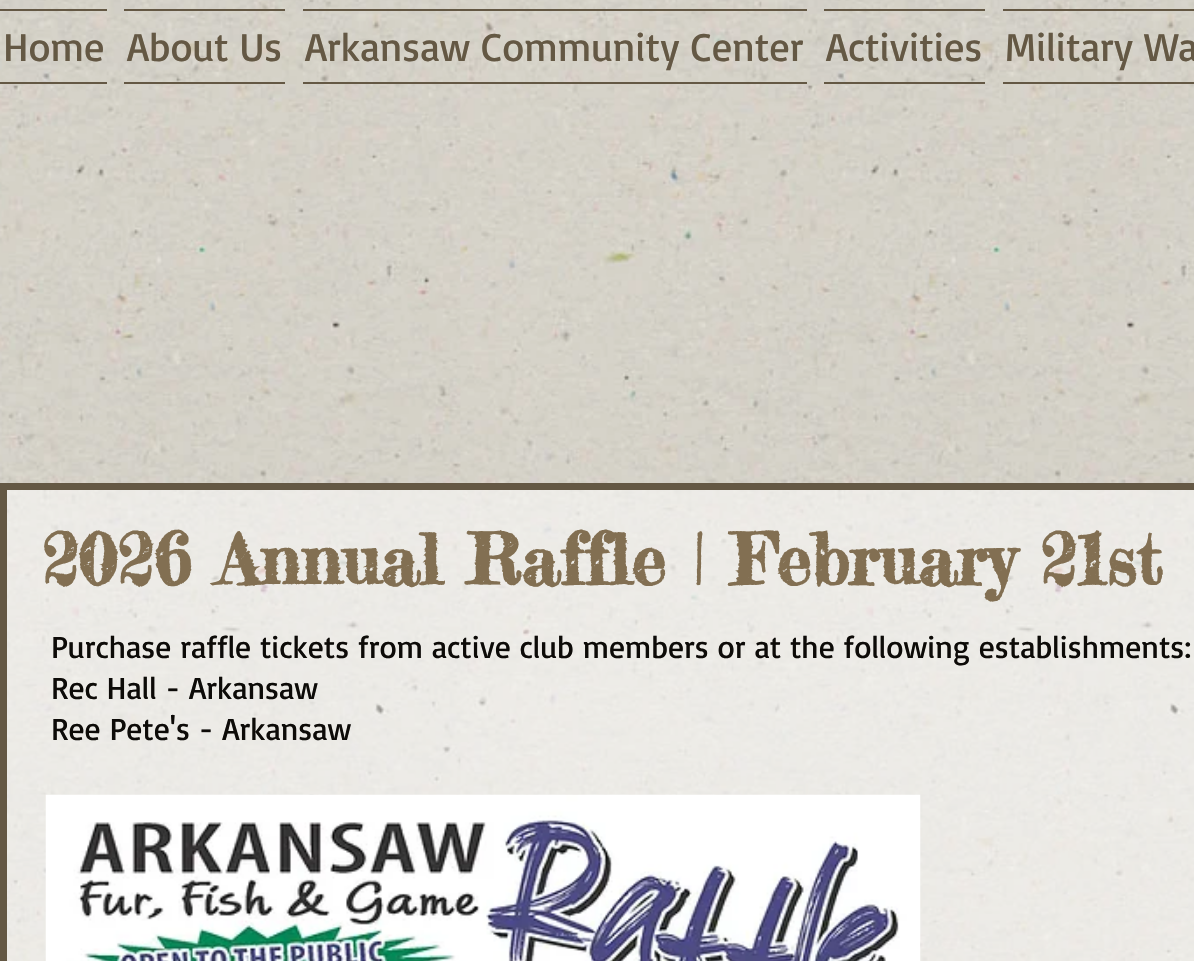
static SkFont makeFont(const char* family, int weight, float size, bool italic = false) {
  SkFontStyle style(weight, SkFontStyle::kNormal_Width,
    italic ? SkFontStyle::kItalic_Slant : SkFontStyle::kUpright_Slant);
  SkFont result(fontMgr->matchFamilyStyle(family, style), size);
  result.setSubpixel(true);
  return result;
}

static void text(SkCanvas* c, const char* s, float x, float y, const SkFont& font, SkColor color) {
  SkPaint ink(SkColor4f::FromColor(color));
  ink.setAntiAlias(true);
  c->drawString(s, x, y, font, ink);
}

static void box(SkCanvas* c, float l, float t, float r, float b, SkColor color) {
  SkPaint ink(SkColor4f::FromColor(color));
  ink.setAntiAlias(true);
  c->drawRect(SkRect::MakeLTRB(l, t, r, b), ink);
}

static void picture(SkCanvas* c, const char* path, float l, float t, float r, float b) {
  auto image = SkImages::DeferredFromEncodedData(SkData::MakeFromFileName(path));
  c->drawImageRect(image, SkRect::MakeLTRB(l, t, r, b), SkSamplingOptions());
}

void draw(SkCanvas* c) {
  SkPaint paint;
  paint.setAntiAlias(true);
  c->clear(0xffffffff);
  picture(c, "img_01.png", 0, 0, 1194, 961);
  box(c, 0, 9, 107, 11, 0xff645844);
  box(c, 0, 82, 107, 84, 0xff645844);
  SkFont face1 = makeFont("Basic", 400, 40.25f);
  text(c, "Home", 3, 61, face1, 0xff645844);
  box(c, 124, 9, 285, 11, 0xff645844);
  box(c, 124, 82, 285, 84, 0xff645844);
  text(c, "About Us", 127, 61, face1, 0xff645844);
  box(c, 303, 9, 807, 11, 0xff645844);
  box(c, 303, 82, 807, 84, 0xff645844);
  text(c, "Arkansaw Community Center", 305, 61, face1, 0xff645844);
  box(c, 824, 9, 985, 11, 0xff645844);
  box(c, 824, 82, 985, 84, 0xff645844);
  text(c, "Activities", 826, 61, face1, 0xff645844);
  box(c, 1003, 9, 1194, 11, 0xff645844);
  box(c, 1003, 82, 1194, 84, 0xff645844);
  text(c, "Military Wa", 1005, 61, face1, 0xff645844);
  paint.setColor(0x8cffffff);
  c->drawRect(SkRect::MakeLTRB(3.5f, 486.5f, 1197.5f, 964.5f), paint);
  paint.setStyle(SkPaint::kStroke_Style);
  paint.setStrokeWidth(7);
  paint.setColor(0xff645844);
  c->drawRect(SkRect::MakeLTRB(3.5f, 486.5f, 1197.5f, 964.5f), paint);
  SkFont face2 = makeFont("Fredericka the Great", 700, 70);
  text(c, "2026 Annual Raffle | February 21st", 42, 585, face2, 0xff826f52);
  SkFont face3 = makeFont("Basic", 400, 31.5f);
  text(c, "Purchase raffle tickets from active club members or at the following establishments:", 51, 658, face3, 0xff0d0b08);
  text(c, "Rec Hall - Arkansaw", 51, 699, face3, 0xff0d0b08);
  text(c, "Ree Pete's - Arkansaw", 51, 740, face3, 0xff0d0b08);
  picture(c, "img_02.png", 45, 794, 921, 961);
}
